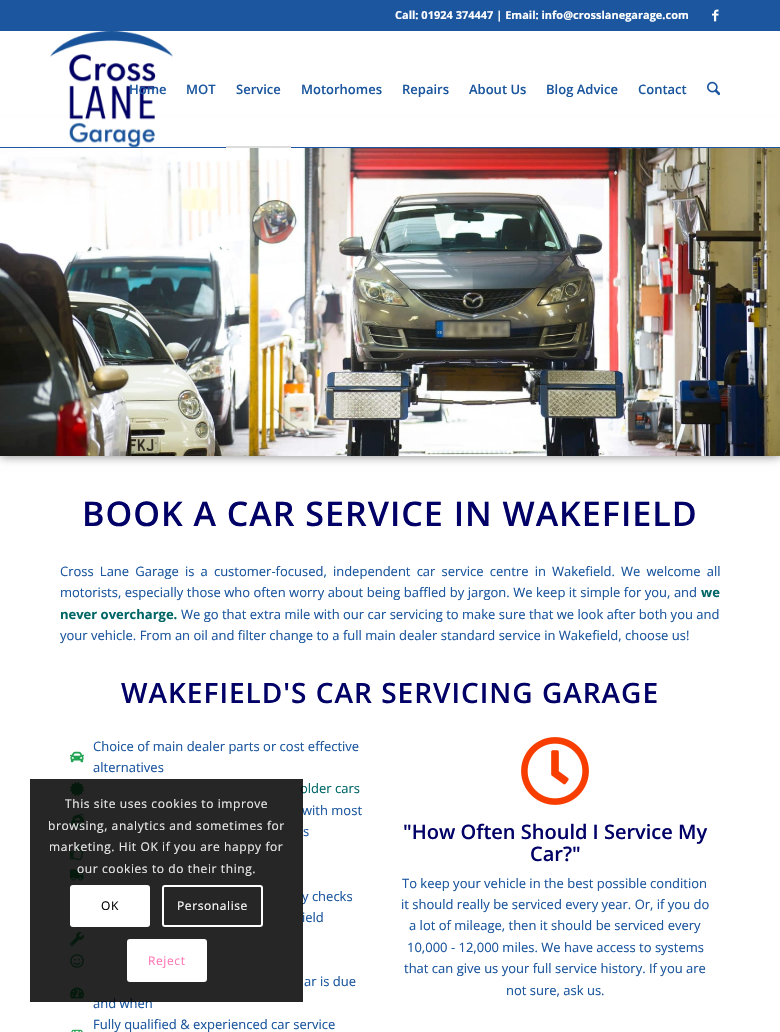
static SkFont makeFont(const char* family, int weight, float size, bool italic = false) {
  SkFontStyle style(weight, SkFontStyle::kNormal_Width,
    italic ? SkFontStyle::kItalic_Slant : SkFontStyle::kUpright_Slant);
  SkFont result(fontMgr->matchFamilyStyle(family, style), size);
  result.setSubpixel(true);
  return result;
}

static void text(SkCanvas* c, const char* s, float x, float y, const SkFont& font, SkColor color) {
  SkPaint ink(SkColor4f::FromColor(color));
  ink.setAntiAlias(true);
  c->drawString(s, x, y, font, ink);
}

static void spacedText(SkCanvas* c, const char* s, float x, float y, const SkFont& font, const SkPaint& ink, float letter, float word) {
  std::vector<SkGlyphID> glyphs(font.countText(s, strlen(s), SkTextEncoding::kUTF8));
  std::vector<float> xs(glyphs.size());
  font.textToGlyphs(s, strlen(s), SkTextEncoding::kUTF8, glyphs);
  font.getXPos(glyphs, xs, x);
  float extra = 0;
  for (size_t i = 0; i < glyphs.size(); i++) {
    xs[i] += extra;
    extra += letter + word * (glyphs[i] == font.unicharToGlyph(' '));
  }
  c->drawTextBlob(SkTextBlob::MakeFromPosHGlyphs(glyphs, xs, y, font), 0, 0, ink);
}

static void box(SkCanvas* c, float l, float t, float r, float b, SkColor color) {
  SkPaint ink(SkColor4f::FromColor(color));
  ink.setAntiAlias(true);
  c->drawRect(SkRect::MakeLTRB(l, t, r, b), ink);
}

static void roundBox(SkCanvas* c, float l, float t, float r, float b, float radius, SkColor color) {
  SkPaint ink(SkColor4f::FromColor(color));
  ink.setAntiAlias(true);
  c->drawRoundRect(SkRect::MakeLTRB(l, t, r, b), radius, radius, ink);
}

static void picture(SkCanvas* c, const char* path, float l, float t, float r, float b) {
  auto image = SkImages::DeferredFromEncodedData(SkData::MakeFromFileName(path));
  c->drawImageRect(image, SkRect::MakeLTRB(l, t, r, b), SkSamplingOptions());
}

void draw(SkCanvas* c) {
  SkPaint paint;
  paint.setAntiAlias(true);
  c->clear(0xffffffff);
  box(c, 0, 0, 780, 31, 0xff1b569e);
  SkFont face1 = makeFont("Open Sans", 700, 11);
  text(c, "Call: 01924 374447 | Email: info@crosslanegarage.com", 395, 19, face1, 0xffffffff);
  picture(c, "img_01.png", 712, 9, 719, 22);
  paint.setColor(0x80000000);
  paint.setMaskFilter(SkMaskFilter::MakeBlur(kNormal_SkBlurStyle, 5));
  c->drawRect(SkRect::MakeLTRB(0, 128, 780, 456), paint);
  paint.setMaskFilter(nullptr);
  box(c, 0, 147, 780, 148, 0xff1b569e);
  box(c, 0, 118, 780, 147, 0xffffffff);
  picture(c, "img_02.png", 50, 31, 173, 147);
  SkFont face2 = makeFont("Open Sans", 600, 13);
  text(c, "Home", 129, 94, face2, 0xff1b569e);
  text(c, "MOT", 186, 94, face2, 0xff1b569e);
  text(c, "Service", 236, 94, face2, 0xff1b569e);
  box(c, 226, 146, 291, 148, 0xffdddddd);
  text(c, "Motorhomes", 301, 94, face2, 0xff1b569e);
  text(c, "Repairs", 402, 94, face2, 0xff1b569e);
  text(c, "About Us", 469, 94, face2, 0xff1b569e);
  text(c, "Blog Advice", 546, 94, face2, 0xff1b569e);
  text(c, "Contact", 638, 94, face2, 0xff1b569e);
  picture(c, "img_03.png", 707, 81, 720, 96);
  picture(c, "img_04.png", 0, 148, 780, 456);
  SkFont face3 = makeFont("Open Sans", 600, 34);
  paint.setColor(0xff000066);
  spacedText(c, "BOOK A CAR SERVICE IN WAKEFIELD", 82, 526, face3, paint, 1, 0);
  SkFont face4 = makeFont("Open Sans", 400, 13);
  paint.setColor(0xff1b569e);
  spacedText(c, "Cross Lane Garage is a customer-focused, independent car service centre in Wakefield. We welcome all", 60, 576, face4, paint, 0, 2.75f);
  spacedText(c, "motorists, especially those who often worry about being baffled by jargon. We keep it simple for you, and", 60, 597, face4, paint, 0, 0.1f);
  SkFont face5 = makeFont("Open Sans", 700, 13);
  text(c, "we", 701, 597, face5, 0xff006666);
  text(c, "never overcharge.", 60, 619, face5, 0xff006666);
  text(c, "We go that extra mile with our car servicing to make sure that we look after both you and", 181, 619, face4, 0xff1b569e);
  text(c, "your vehicle. From an oil and filter change to a full main dealer standard service in Wakefield, choose us!", 60, 640, face4, 0xff1b569e);
  SkFont face6 = makeFont("Open Sans", 600, 28);
  paint.setColor(0xff000066);
  spacedText(c, "WAKEFIELD'S CAR SERVICING GARAGE", 121, 703, face6, paint, 1, 0);
  picture(c, "img_05.png", 70, 751, 84, 763);
  text(c, "Choice of main dealer parts or cost effective", 93, 751, face4, 0xff1b569e);
  text(c, "alternatives", 93, 772, face4, 0xff1b569e);
  picture(c, "img_06.png", 70, 782, 84, 796);
  text(c, "older cars", 300, 793, face4, 0xff006666);
  picture(c, "img_07.png", 70, 814, 84, 828);
  text(c, "with most", 302, 815, face4, 0xff1b569e);
  text(c, "s", 303, 836, face4, 0xff1b569e);
  picture(c, "img_08.png", 70, 846, 84, 860);
  picture(c, "img_09.png", 70, 869, 84, 881);
  text(c, "y checks", 302, 901, face4, 0xff1b569e);
  text(c, "ield", 302, 922, face4, 0xff1b569e);
  picture(c, "img_10.png", 70, 932, 84, 946);
  picture(c, "img_11.png", 70, 954, 84, 968);
  picture(c, "img_12.png", 70, 987, 84, 999);
  text(c, "ar is due", 304, 986, face4, 0xff1b569e);
  text(c, "and when", 93, 1008, face4, 0xff1b569e);
  picture(c, "img_13.png", 71, 1029, 83, 1032);
  text(c, "Fully qualified & experienced car service", 93, 1029, face4, 0xff1b569e);
  picture(c, "img_14.png", 521, 737, 589, 805);
  SkFont face7 = makeFont("Open Sans", 600, 20);
  text(c, "\"How Often Should I Service My", 403, 839, face7, 0xff000066);
  text(c, "Car?\"", 530, 861, face7, 0xff000066);
  text(c, "To keep your vehicle in the best possible condition", 402, 888, face4, 0xff1b569e);
  text(c, "it should really be serviced every year. Or, if you do", 401, 909, face4, 0xff1b569e);
  text(c, "a lot of mileage, then it should be serviced every", 409, 930, face4, 0xff1b569e);
  text(c, "10,000 - 12,000 miles. We have access to systems", 407, 952, face4, 0xff1b569e);
  text(c, "that can give us your full service history. If you are", 404, 973, face4, 0xff1b569e);
  text(c, "not sure, ask us.", 506, 995, face4, 0xff1b569e);
  box(c, 30, 779, 303, 1002, 0xd9000000);
  SkFont face8 = makeFont("Open Sans", 400, 12);
  paint.setColor(0xffe9e9e9);
  spacedText(c, "This site uses cookies to improve", 65, 808, face8, paint, 0.6f, 0);
  spacedText(c, "browsing, analytics and sometimes for", 48, 830, face8, paint, 0.6f, 0);
  spacedText(c, "marketing. Hit OK if you are happy for", 49, 851, face8, paint, 0.6f, 0);
  spacedText(c, "our cookies to do their thing.", 77, 873, face8, paint, 0.6f, 0);
  roundBox(c, 70, 885, 150, 927, 3, 0xffffffff);
  paint.setColor(0xff000000);
  spacedText(c, "OK", 101, 910, face8, paint, 0.6f, 0);
  paint.setStyle(SkPaint::kStroke_Style);
  paint.setStrokeWidth(2);
  paint.setColor(0xffffffff);
  c->drawRoundRect(SkRect::MakeLTRB(163, 886, 262, 926), 2, 2, paint);
  paint.setStyle(SkPaint::kFill_Style);
  spacedText(c, "Personalise", 177, 910, face8, paint, 0.6f, 0);
  c->drawRoundRect(SkRect::MakeLTRB(128, 940, 206, 981), 2, 2, paint);
  paint.setStyle(SkPaint::kStroke_Style);
  c->drawRoundRect(SkRect::MakeLTRB(128, 940, 206, 981), 2, 2, paint);
  paint.setStyle(SkPaint::kFill_Style);
  paint.setColor(0xffff75b5);
  spacedText(c, "Reject", 148, 965, face8, paint, 0.6f, 0);
}
